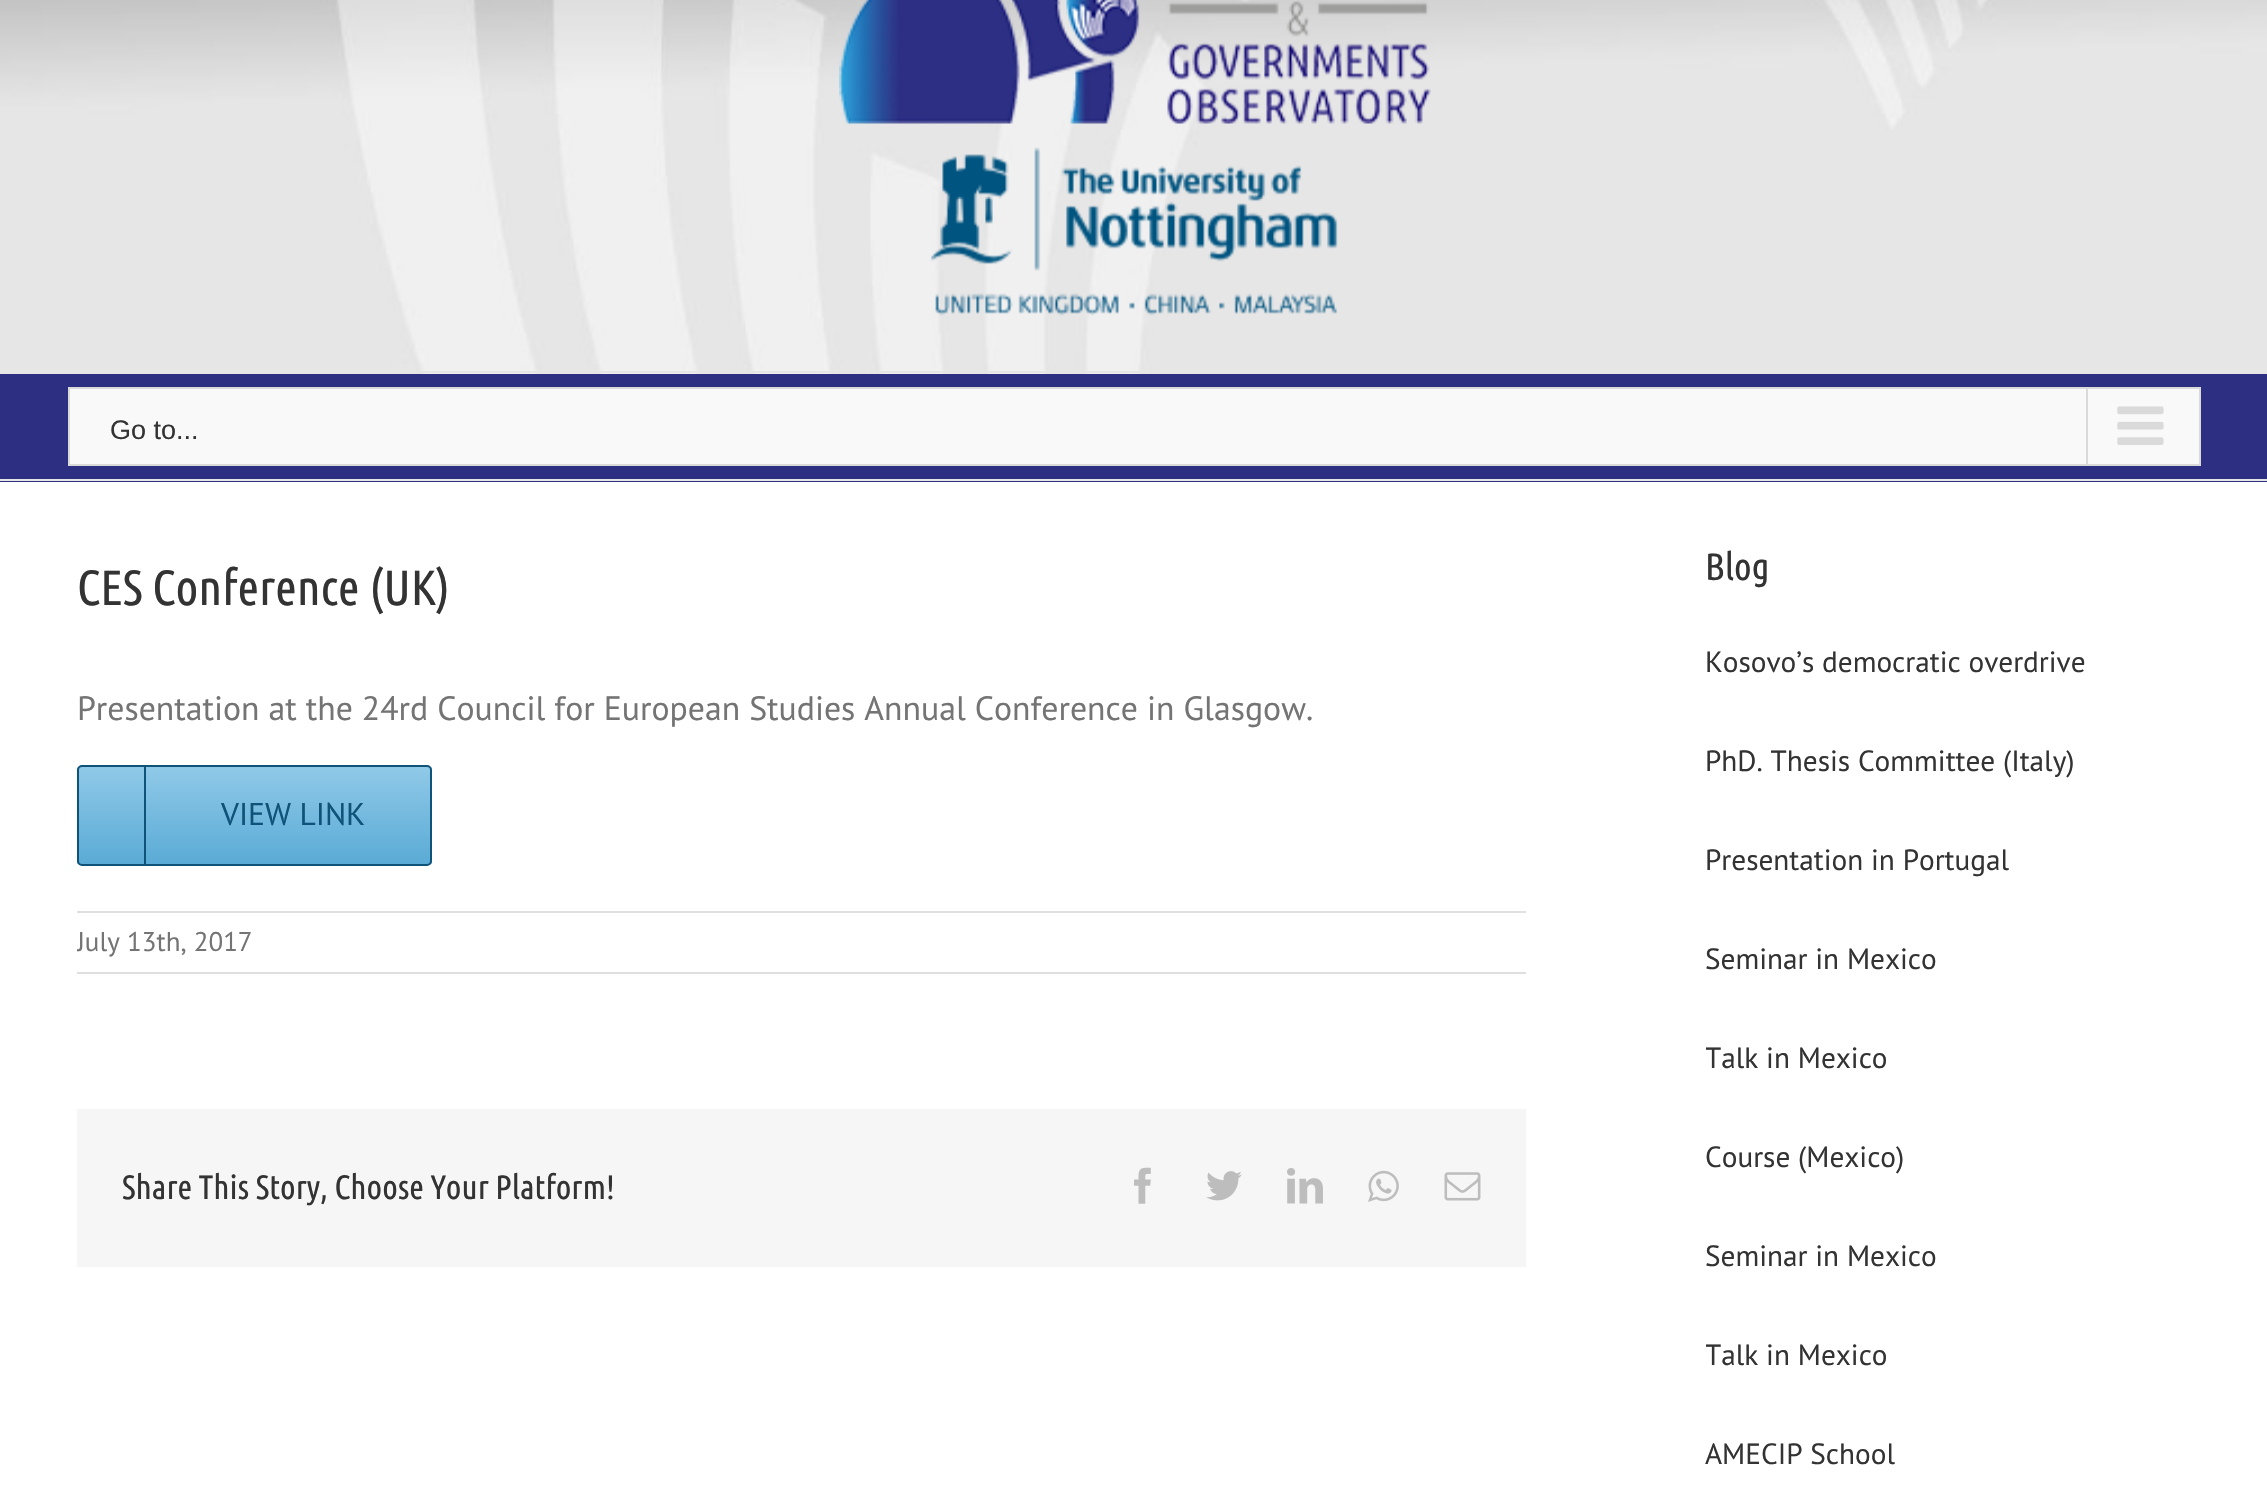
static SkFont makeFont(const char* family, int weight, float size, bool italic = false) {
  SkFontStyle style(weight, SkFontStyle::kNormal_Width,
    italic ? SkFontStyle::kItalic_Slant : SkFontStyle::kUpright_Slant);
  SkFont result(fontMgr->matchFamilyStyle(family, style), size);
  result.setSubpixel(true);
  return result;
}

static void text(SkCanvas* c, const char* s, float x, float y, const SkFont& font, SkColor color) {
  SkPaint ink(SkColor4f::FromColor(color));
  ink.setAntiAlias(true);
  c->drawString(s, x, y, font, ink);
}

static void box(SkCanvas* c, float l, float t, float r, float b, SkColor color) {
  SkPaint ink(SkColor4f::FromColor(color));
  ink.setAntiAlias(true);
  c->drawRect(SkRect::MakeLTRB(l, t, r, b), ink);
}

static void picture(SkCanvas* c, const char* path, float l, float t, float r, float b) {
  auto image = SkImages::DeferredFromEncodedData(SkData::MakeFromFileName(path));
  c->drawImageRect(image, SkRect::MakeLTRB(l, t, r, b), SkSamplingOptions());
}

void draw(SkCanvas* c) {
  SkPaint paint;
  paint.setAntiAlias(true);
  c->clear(0xffffffff);
  picture(c, "img_01.png", 0, 0, 2267, 374);
  box(c, 421, 371, 1140, 373, 0xffe5e5e5);
  picture(c, "img_02.png", 839, 0, 1431, 124);
  picture(c, "img_03.png", 930, 147, 1338, 316);
  box(c, 0, 374, 2267, 482, 0xff2d2f83);
  box(c, 0, 479, 2267, 481, 0xffe5e5e5);
  paint.setColor(0xfff9f9f9);
  c->drawRect(SkRect::MakeLTRB(69, 388, 2200, 465), paint);
  paint.setStyle(SkPaint::kStroke_Style);
  paint.setStrokeWidth(2);
  paint.setColor(0xffdadada);
  c->drawRect(SkRect::MakeLTRB(69, 388, 2200, 465), paint);
  SkFont face1 = makeFont("Liberation Sans", 400, 27);
  text(c, "Go to...", 110, 439, face1, 0xff333333);
  box(c, 2086, 389, 2088, 464, 0xffdadada);
  picture(c, "img_04.png", 2117, 406, 2164, 445);
  SkFont face2 = makeFont("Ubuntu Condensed", 400, 49.5f);
  text(c, "CES Conference (UK)", 77, 605, face2, 0xff333333);
  SkFont face3 = makeFont("PT Sans", 400, 33.75f);
  text(c, "Presentation at the 24rd Council for European Studies Annual Conference in Glasgow.", 77, 720, face3, 0xff747474);
  c->save();
  c->clipPath(SkPathBuilder().moveTo(82, 765).lineTo(427, 765).cubicTo(430, 765, 432, 767, 432, 770).lineTo(432, 861).cubicTo(432, 864, 430, 866, 427, 866).lineTo(82, 866).cubicTo(79, 866, 77, 864, 77, 861).lineTo(77, 770).cubicTo(77, 767, 79, 765, 82, 765).close().detach(), true);
  paint.setStyle(SkPaint::kFill_Style);
  {
    const SkColor colors[] = {0xff5aabd6, 0xff90c9e8};
    const float stops[] = {0, 1};
    const SkPoint ends[] = {{254, 864}, {254, 767}};
    paint.setShader(SkGradientShader::MakeLinear(ends, colors, stops, 2, SkTileMode::kClamp));
    paint.setAlpha(255);
  }
  c->drawRect(SkRect::MakeLTRB(77, 767, 432, 864), paint);
  c->restore();
  paint.setStyle(SkPaint::kStroke_Style);
  paint.setShader(nullptr);
  paint.setColor(0xff105378);
  c->drawRoundRect(SkRect::MakeLTRB(78, 766, 431, 865), 4, 4, paint);
  box(c, 144, 767, 146, 864, 0xff105378);
  SkFont face4 = makeFont("PT Sans", 400, 31.5f);
  text(c, "VIEW LINK", 221, 825, face4, 0xff105378);
  box(c, 77, 911, 1526, 913, 0xffe0dede);
  box(c, 77, 972, 1526, 974, 0xffe0dede);
  c->save();
  c->clipRect(SkRect::MakeLTRB(77, 914, 1526, 972));
  SkFont face5 = makeFont("PT Sans", 400, 27);
  text(c, "July 13th, 2017", 77, 951, face5, 0xff747474);
  c->restore();
  box(c, 77, 1109, 1526, 1267, 0xfff6f6f6);
  SkFont face6 = makeFont("Ubuntu Condensed", 400, 33.75f);
  text(c, "Share This Story, Choose Your Platform!", 122, 1199, face6, 0xff333333);
  picture(c, "img_05.png", 1134, 1167, 1151, 1204);
  picture(c, "img_06.png", 1206, 1171, 1242, 1201);
  picture(c, "img_07.png", 1287, 1168, 1323, 1204);
  picture(c, "img_08.png", 1368, 1170, 1399, 1202);
  picture(c, "img_09.png", 1444, 1172, 1481, 1201);
  SkFont face7 = makeFont("Ubuntu Condensed", 400, 38);
  text(c, "Blog", 1705, 580, face7, 0xff333333);
  SkFont face8 = makeFont("PT Sans", 400, 29.25f);
  text(c, "Kosovo’s democratic overdrive", 1705, 672, face8, 0xff333333);
  text(c, "PhD. Thesis Committee (Italy)", 1705, 771, face8, 0xff333333);
  text(c, "Presentation in Portugal", 1705, 870, face8, 0xff333333);
  text(c, "Seminar in Mexico", 1705, 969, face8, 0xff333333);
  c->save();
  c->clipRect(SkRect::MakeLTRB(1706, 1033, 2192, 1085));
  text(c, "Talk in Mexico", 1705, 1068, face8, 0xff333333);
  c->restore();
  text(c, "Course (Mexico)", 1705, 1167, face8, 0xff333333);
  text(c, "Seminar in Mexico", 1705, 1266, face8, 0xff333333);
  c->save();
  c->clipRect(SkRect::MakeLTRB(1706, 1330, 2192, 1382));
  text(c, "Talk in Mexico", 1705, 1365, face8, 0xff333333);
  c->restore();
  text(c, "AMECIP School", 1705, 1464, face8, 0xff333333);
}
